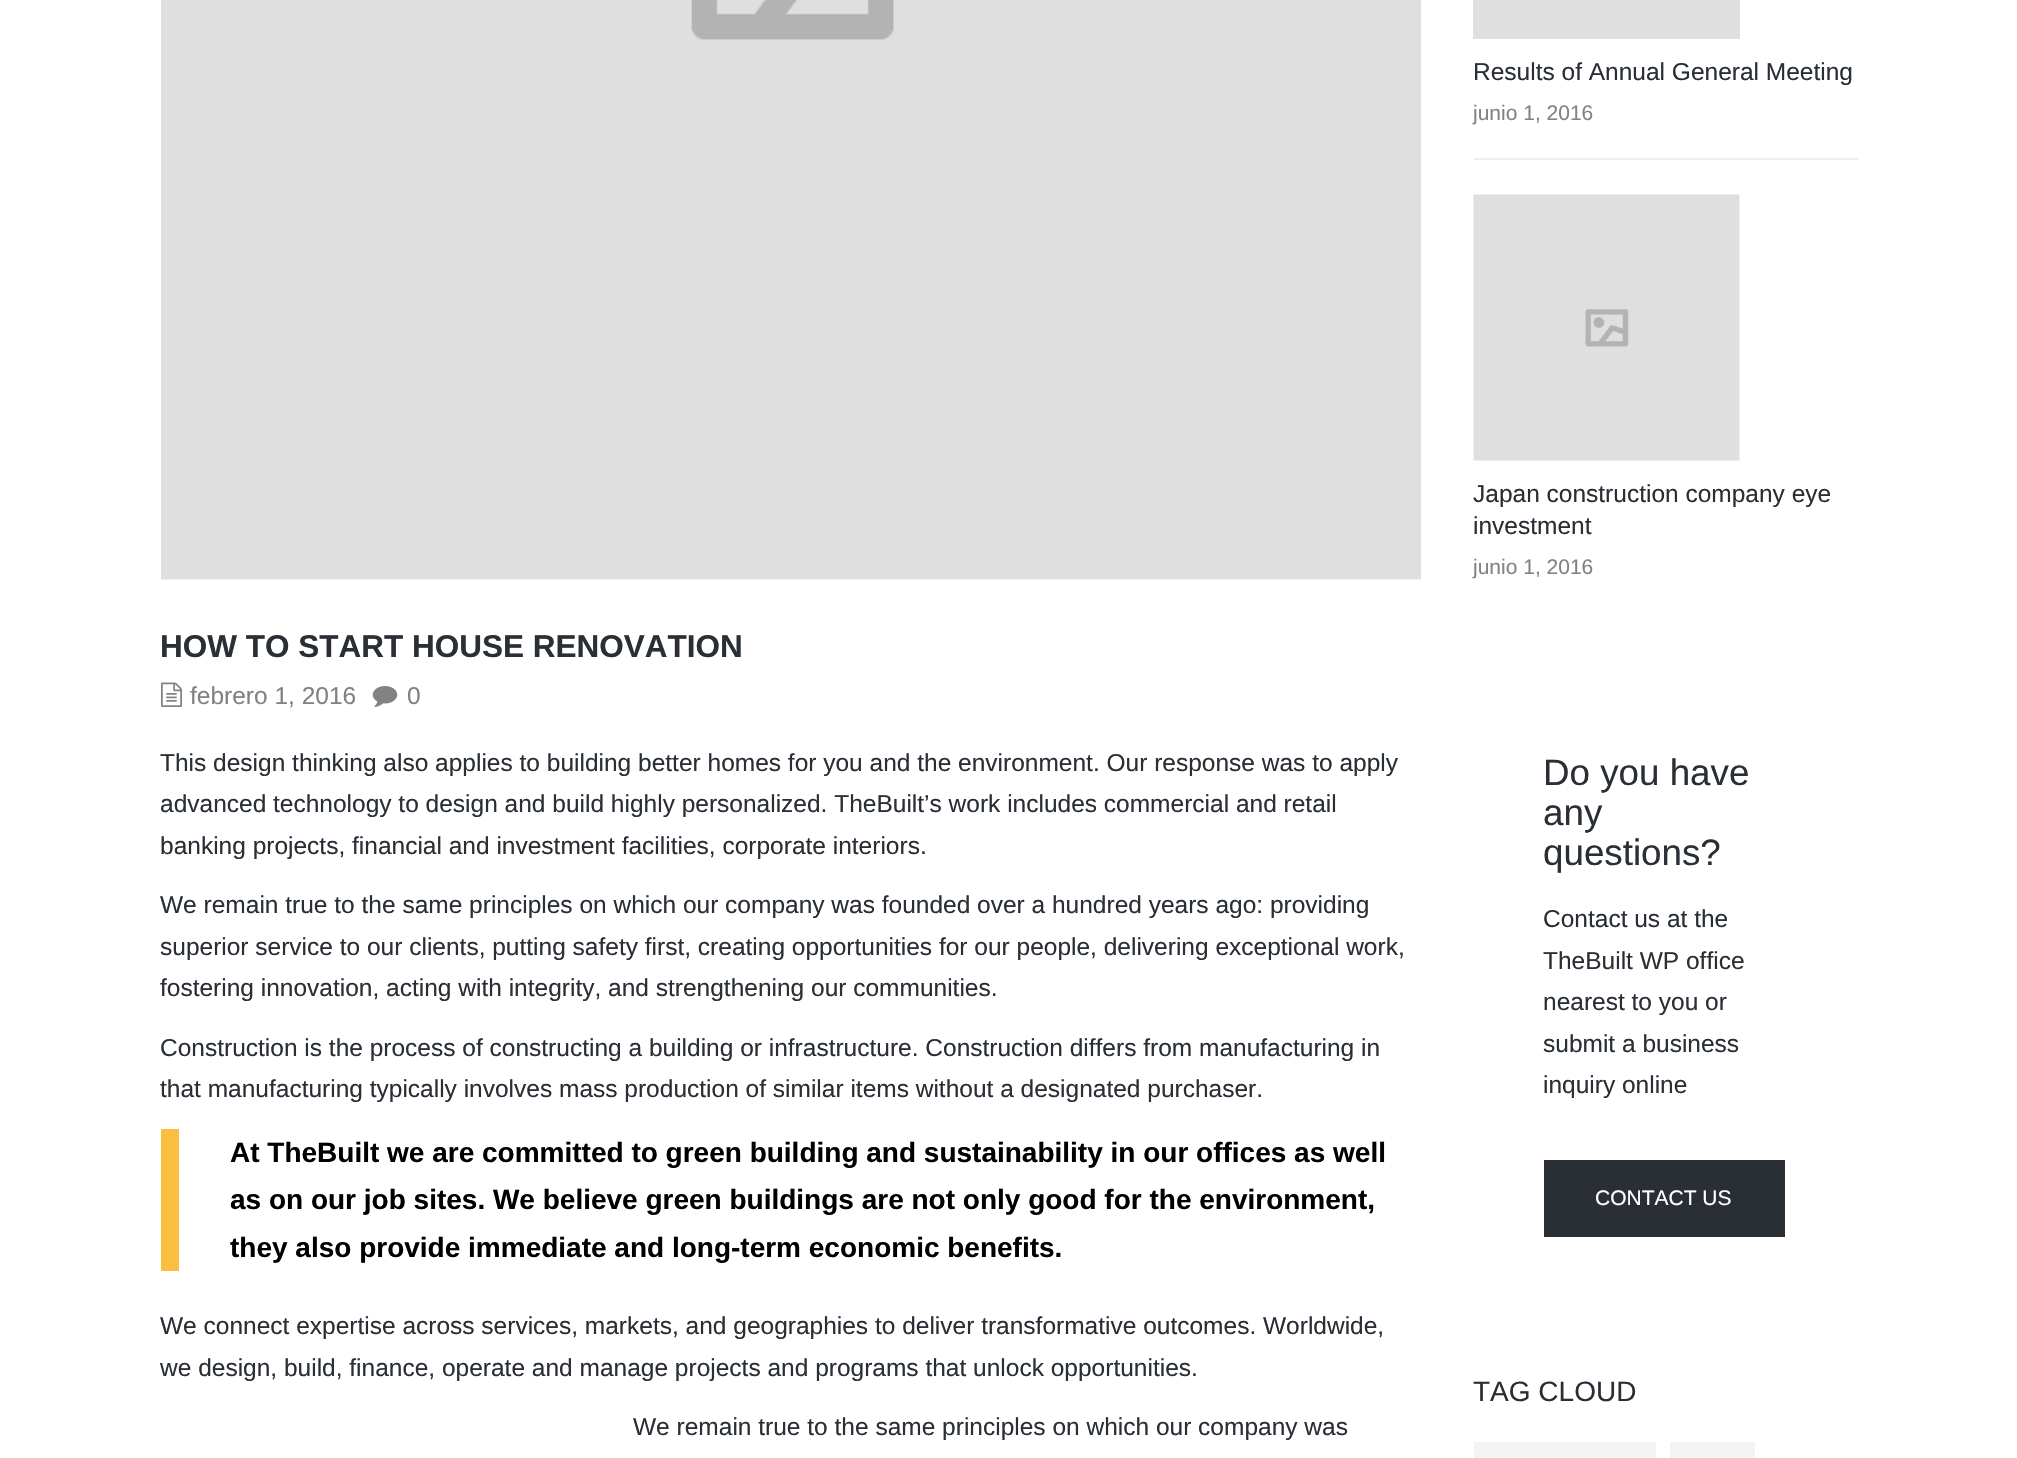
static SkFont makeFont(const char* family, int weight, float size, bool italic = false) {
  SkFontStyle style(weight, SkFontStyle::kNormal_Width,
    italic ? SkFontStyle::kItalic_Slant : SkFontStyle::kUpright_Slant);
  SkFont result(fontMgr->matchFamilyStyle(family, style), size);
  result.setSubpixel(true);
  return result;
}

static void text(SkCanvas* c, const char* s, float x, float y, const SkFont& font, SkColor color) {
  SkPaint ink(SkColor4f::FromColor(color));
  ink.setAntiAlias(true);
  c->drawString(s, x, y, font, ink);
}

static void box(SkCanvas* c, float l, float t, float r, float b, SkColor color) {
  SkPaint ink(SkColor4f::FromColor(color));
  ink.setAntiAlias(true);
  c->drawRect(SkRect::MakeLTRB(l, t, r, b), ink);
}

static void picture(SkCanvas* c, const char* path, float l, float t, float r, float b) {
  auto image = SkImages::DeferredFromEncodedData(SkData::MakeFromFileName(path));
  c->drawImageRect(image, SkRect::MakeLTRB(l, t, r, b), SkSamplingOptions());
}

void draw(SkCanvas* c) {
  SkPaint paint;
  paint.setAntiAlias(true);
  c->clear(0xffffffff);
  picture(c, "img_01.png", 161, 0, 1421, 580);
  SkFont face1 = makeFont("Liberation Sans", 700, 31.5f);
  text(c, "HOW TO START HOUSE RENOVATION", 160, 657, face1, 0xff2a2f35);
  picture(c, "img_02.png", 161, 682, 182, 707);
  SkFont face2 = makeFont("Liberation Sans", 400, 24.5f);
  text(c, "febrero 1, 2016", 190, 704, face2, 0xff828282);
  picture(c, "img_03.png", 372, 686, 398, 707);
  text(c, "0", 407, 704, face2, 0xff828282);
  text(c, "This design thinking also applies to building better homes for you and the environment. Our response was to apply", 160, 771, face2, 0xff2a2f35);
  text(c, "advanced technology to design and build highly personalized. TheBuilt’s work includes commercial and retail", 160, 812, face2, 0xff2a2f35);
  text(c, "banking projects, financial and investment facilities, corporate interiors.", 160, 854, face2, 0xff2a2f35);
  text(c, "We remain true to the same principles on which our company was founded over a hundred years ago: providing", 160, 913, face2, 0xff2a2f35);
  text(c, "superior service to our clients, putting safety first, creating opportunities for our people, delivering exceptional work,", 160, 955, face2, 0xff2a2f35);
  text(c, "fostering innovation, acting with integrity, and strengthening our communities.", 160, 996, face2, 0xff2a2f35);
  text(c, "Construction is the process of constructing a building or infrastructure. Construction differs from manufacturing in", 160, 1056, face2, 0xff2a2f35);
  text(c, "that manufacturing typically involves mass production of similar items without a designated purchaser.", 160, 1097, face2, 0xff2a2f35);
  box(c, 161, 1129, 179, 1271, 0xfffbbe3f);
  SkFont face3 = makeFont("Liberation Sans", 700, 28);
  text(c, "At TheBuilt we are committed to green building and sustainability in our offices as well", 230, 1162, face3, 0xff000000);
  text(c, "as on our job sites. We believe green buildings are not only good for the environment,", 230, 1209, face3, 0xff000000);
  text(c, "they also provide immediate and long-term economic benefits.", 230, 1257, face3, 0xff000000);
  text(c, "We connect expertise across services, markets, and geographies to deliver transformative outcomes. Worldwide,", 160, 1334, face2, 0xff2a2f35);
  text(c, "we design, build, finance, operate and manage projects and programs that unlock opportunities.", 160, 1376, face2, 0xff2a2f35);
  text(c, "We remain true to the same principles on which our company was", 633, 1435, face2, 0xff2a2f35);
  box(c, 1474, 158, 1859, 160, 0xffeeeeee);
  box(c, 1473, 0, 1740, 39, 0xffdfdfdf);
  text(c, "Results of Annual General Meeting", 1473, 80, face2, 0xff2a2f35);
  SkFont face4 = makeFont("Liberation Sans", 400, 21);
  text(c, "junio 1, 2016", 1473, 120, face4, 0xff828282);
  picture(c, "img_04.png", 1473, 194, 1740, 461);
  text(c, "Japan construction company eye", 1473, 502, face2, 0xff2a2f35);
  text(c, "investment", 1473, 534, face2, 0xff2a2f35);
  text(c, "junio 1, 2016", 1473, 574, face4, 0xff828282);
  SkFont face5 = makeFont("Liberation Sans", 400, 36.75f);
  text(c, "Do you have", 1543, 785, face5, 0xff2a2f35);
  text(c, "any", 1543, 825, face5, 0xff2a2f35);
  text(c, "questions?", 1543, 865, face5, 0xff2a2f35);
  text(c, "Contact us at the", 1543, 927, face2, 0xff2a2f35);
  text(c, "TheBuilt WP office", 1543, 969, face2, 0xff2a2f35);
  text(c, "nearest to you or", 1543, 1010, face2, 0xff2a2f35);
  text(c, "submit a business", 1543, 1052, face2, 0xff2a2f35);
  text(c, "inquiry online", 1543, 1093, face2, 0xff2a2f35);
  box(c, 1544, 1160, 1785, 1237, 0xff2a2f35);
  text(c, "CONTACT US", 1595, 1205, face4, 0xffffffff);
  SkFont face6 = makeFont("Liberation Sans", 400, 28);
  text(c, "TAG CLOUD", 1473, 1401, face6, 0xff2a2f35);
  box(c, 1474, 1442, 1656, 1458, 0xfff4f4f4);
  box(c, 1670, 1442, 1755, 1458, 0xfff4f4f4);
}
